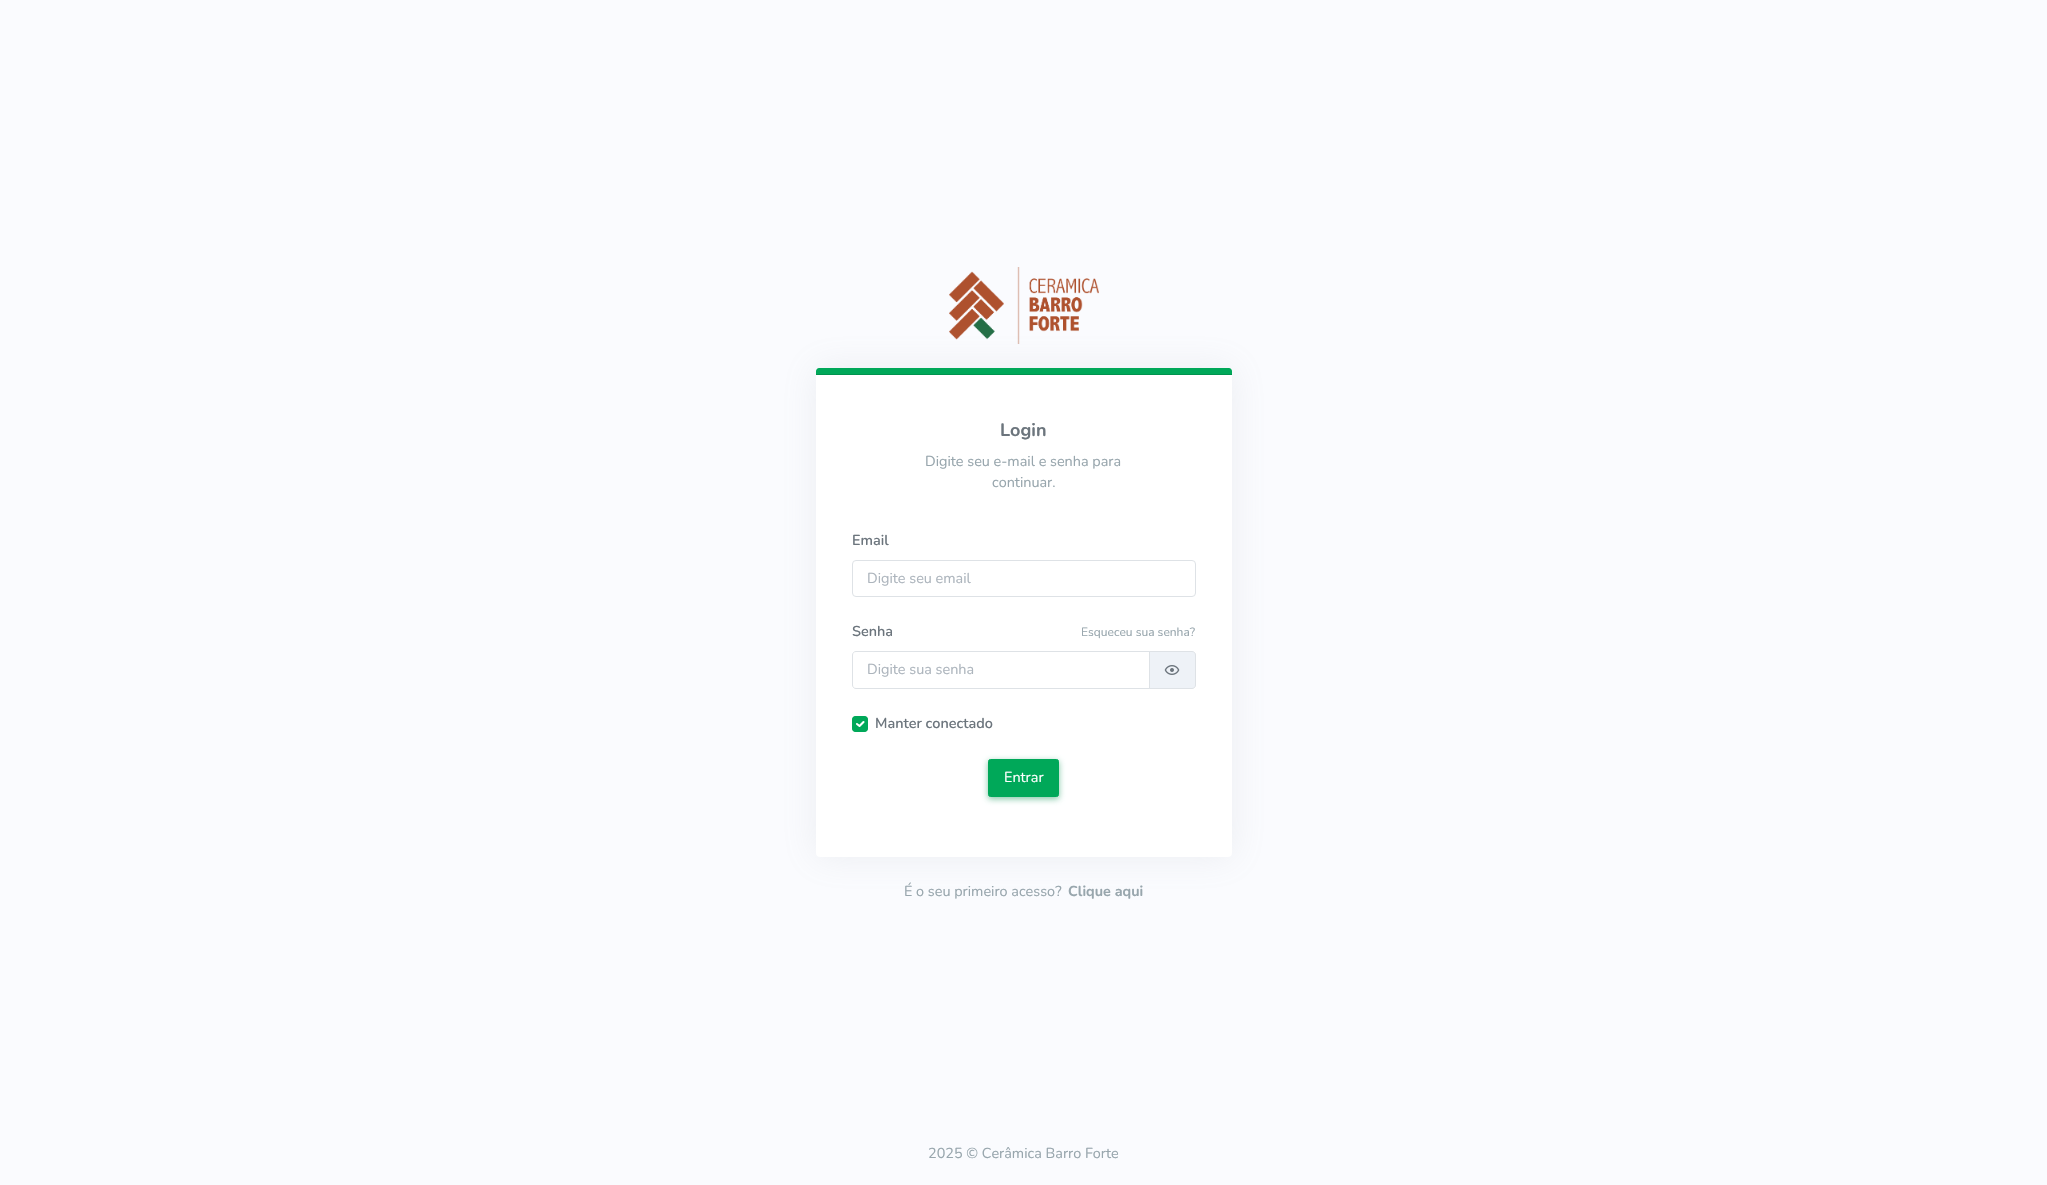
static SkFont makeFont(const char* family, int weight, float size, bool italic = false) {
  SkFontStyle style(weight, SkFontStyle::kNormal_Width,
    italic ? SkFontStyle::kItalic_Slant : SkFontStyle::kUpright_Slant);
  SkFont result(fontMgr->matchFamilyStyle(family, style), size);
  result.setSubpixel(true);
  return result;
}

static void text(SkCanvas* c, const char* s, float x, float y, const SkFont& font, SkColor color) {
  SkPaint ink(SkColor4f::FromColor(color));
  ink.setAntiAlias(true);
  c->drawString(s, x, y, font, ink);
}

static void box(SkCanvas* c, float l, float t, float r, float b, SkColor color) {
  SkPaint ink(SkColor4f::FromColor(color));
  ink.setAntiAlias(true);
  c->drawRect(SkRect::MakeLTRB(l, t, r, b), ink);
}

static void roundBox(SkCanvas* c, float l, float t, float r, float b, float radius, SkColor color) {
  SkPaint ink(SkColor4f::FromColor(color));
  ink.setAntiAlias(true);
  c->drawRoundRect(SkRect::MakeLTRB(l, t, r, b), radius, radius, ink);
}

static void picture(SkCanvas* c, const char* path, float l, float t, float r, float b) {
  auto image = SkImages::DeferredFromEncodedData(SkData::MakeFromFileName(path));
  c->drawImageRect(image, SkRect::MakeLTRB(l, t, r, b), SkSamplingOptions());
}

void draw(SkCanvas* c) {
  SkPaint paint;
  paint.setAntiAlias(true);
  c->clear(0xfffafbfe);
  picture(c, "img_01.png", 949, 267, 1099, 344);
  paint.setColor(0x269aa1ab);
  paint.setMaskFilter(SkMaskFilter::MakeBlur(kNormal_SkBlurStyle, 17.5f));
  c->drawRoundRect(SkRect::MakeLTRB(816, 368, 1232, 857), 4, 4, paint);
  paint.setMaskFilter(nullptr);
  roundBox(c, 816, 368, 1232, 857, 4, 0xffffffff);
  paint.setColor(0xff00a859);
  c->drawPath(SkPathBuilder().moveTo(819, 368).lineTo(1229, 368).cubicTo(1230.5f, 368, 1232, 369.5f, 1232, 371).lineTo(1232, 375).lineTo(816, 375).lineTo(816, 371).cubicTo(816, 369.5f, 817.5f, 368, 819, 368).close().detach(), paint);
  box(c, 816, 374, 1232, 375, 0xff00934e);
  SkFont face1 = makeFont("Nunito", 700, 18);
  text(c, "Login", 1000, 436, face1, 0xff6c757d);
  SkFont face2 = makeFont("Nunito", 400, 14.4f);
  text(c, "Digite seu e-mail e senha para", 925, 466, face2, 0xff98a6ad);
  text(c, "continuar.", 992, 487, face2, 0xff98a6ad);
  SkFont face3 = makeFont("Nunito", 600, 14.4f);
  text(c, "Email", 852, 545, face3, 0xff6c757d);
  paint.setStyle(SkPaint::kStroke_Style);
  paint.setStrokeWidth(1);
  paint.setColor(0xffdee2e6);
  c->drawRoundRect(SkRect::MakeLTRB(852.5f, 560.5f, 1195.5f, 596.5f), 3.5f, 3.5f, paint);
  text(c, "Digite seu email", 867, 583, face2, 0xffadb5bd);
  text(c, "Senha", 852, 636, face3, 0xff6c757d);
  SkFont face4 = makeFont("Nunito", 400, 12);
  text(c, "Esqueceu sua senha?", 1081, 636, face4, 0xff98a6ad);
  paint.setStyle(SkPaint::kFill_Style);
  paint.setColor(0xffeef2f7);
  c->drawPath(SkPathBuilder().moveTo(1149.5f, 651.5f).lineTo(1192, 651.5f).cubicTo(1194, 651.5f, 1195.5f, 653, 1195.5f, 655).lineTo(1195.5f, 685).cubicTo(1195.5f, 687, 1194, 688.5f, 1192, 688.5f).lineTo(1149.5f, 688.5f).close().detach(), paint);
  paint.setStyle(SkPaint::kStroke_Style);
  paint.setColor(0xffdee2e6);
  c->drawPath(SkPathBuilder().moveTo(1149.5f, 651.5f).lineTo(1192, 651.5f).cubicTo(1194, 651.5f, 1195.5f, 653, 1195.5f, 655).lineTo(1195.5f, 685).cubicTo(1195.5f, 687, 1194, 688.5f, 1192, 688.5f).lineTo(1149.5f, 688.5f).close().detach(), paint);
  c->drawPath(SkPathBuilder().moveTo(856, 651.5f).lineTo(1149.5f, 651.5f).lineTo(1149.5f, 688.5f).lineTo(856, 688.5f).cubicTo(854, 688.5f, 852.5f, 687, 852.5f, 685).lineTo(852.5f, 655).cubicTo(852.5f, 653, 854, 651.5f, 856, 651.5f).close().detach(), paint);
  text(c, "Digite sua senha", 867, 674, face2, 0xffadb5bd);
  picture(c, "img_02.png", 1164, 665, 1180, 675);
  roundBox(c, 852, 716, 868, 732, 4, 0xff00a859);
  paint.setStrokeWidth(2.1f);
  paint.setStrokeCap(SkPaint::kRound_Cap);
  paint.setStrokeJoin(SkPaint::kRound_Join);
  paint.setColor(0xffffffff);
  c->drawPath(SkPathBuilder().moveTo(857, 724).lineTo(859.5f, 726).lineTo(863.5f, 722).detach(), paint);
  paint.setStrokeWidth(1);
  paint.setStrokeCap(SkPaint::kButt_Cap);
  paint.setStrokeJoin(SkPaint::kMiter_Join);
  paint.setColor(0xff00a859);
  c->drawRoundRect(SkRect::MakeLTRB(852.5f, 716.5f, 867.5f, 731.5f), 3.5f, 3.5f, paint);
  text(c, "Manter conectado", 875, 728, face3, 0xff6c757d);
  paint.setStyle(SkPaint::kFill_Style);
  paint.setColor(0x7d008c49);
  paint.setMaskFilter(SkMaskFilter::MakeBlur(kNormal_SkBlurStyle, 3));
  c->drawRoundRect(SkRect::MakeLTRB(988, 761, 1059, 799), 2.5f, 2.5f, paint);
  paint.setMaskFilter(nullptr);
  paint.setColor(0xff00a859);
  c->drawRoundRect(SkRect::MakeLTRB(988.5f, 759.5f, 1058.5f, 796.5f), 2, 2, paint);
  paint.setStyle(SkPaint::kStroke_Style);
  c->drawRoundRect(SkRect::MakeLTRB(988.5f, 759.5f, 1058.5f, 796.5f), 2, 2, paint);
  text(c, "Entrar", 1004, 782, face2, 0xffffffff);
  text(c, "É o seu primeiro acesso?", 904, 896, face2, 0xff98a6ad);
  SkFont face5 = makeFont("Nunito", 700, 14.4f);
  text(c, "Clique aqui", 1068, 896, face5, 0xff98a6ad);
  text(c, "2025 © Cerâmica Barro Forte", 928, 1158, face2, 0xff98a6ad);
}
